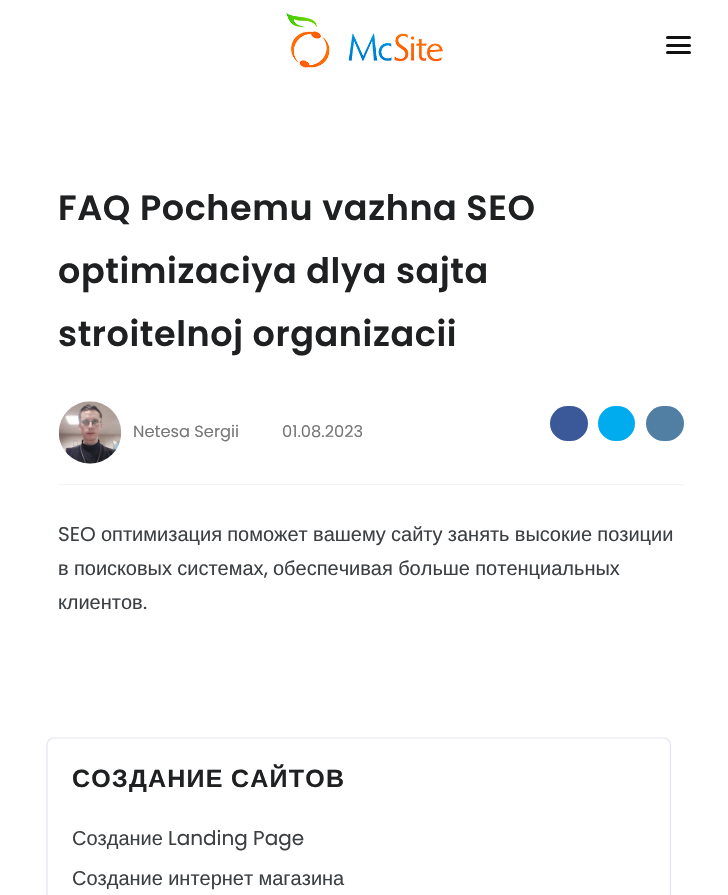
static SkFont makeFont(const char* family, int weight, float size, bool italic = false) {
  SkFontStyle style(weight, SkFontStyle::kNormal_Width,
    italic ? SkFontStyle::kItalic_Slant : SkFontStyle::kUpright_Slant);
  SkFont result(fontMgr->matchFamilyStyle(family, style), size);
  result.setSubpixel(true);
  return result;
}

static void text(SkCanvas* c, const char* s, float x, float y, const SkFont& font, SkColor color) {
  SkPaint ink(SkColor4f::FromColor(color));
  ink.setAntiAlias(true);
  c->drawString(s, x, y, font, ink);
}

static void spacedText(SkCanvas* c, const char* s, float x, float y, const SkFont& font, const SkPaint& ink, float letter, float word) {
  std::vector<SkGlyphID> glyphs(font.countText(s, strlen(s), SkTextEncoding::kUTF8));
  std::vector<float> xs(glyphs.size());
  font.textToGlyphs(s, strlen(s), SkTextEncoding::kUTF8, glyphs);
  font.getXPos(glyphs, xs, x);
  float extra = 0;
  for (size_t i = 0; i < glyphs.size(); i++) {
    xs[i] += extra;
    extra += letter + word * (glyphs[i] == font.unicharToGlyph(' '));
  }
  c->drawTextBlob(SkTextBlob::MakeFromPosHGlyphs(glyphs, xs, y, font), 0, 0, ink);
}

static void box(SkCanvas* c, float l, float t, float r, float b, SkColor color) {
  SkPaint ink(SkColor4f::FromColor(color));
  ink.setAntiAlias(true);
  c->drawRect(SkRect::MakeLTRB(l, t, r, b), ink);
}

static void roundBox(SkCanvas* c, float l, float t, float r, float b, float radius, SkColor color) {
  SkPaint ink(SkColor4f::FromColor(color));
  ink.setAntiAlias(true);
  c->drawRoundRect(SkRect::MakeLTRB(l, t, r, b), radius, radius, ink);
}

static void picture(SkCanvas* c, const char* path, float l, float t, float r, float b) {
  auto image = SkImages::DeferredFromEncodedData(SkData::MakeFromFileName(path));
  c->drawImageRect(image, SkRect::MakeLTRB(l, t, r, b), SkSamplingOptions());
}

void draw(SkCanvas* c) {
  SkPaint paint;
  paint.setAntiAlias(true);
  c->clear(0xffffffff);
  picture(c, "img_01.png", 286, 12, 443, 68);
  roundBox(c, 666, 44, 691, 47, 1.5f, 0xff111111);
  roundBox(c, 666, 36, 691, 39, 1.5f, 0xff111111);
  roundBox(c, 666, 51, 691, 54, 1.5f, 0xff111111);
  SkFont face1 = makeFont("Poppins", 600, 35);
  paint.setColor(0xff1e2022);
  spacedText(c, "FAQ Pochemu vazhna SEO", 58, 220, face1, paint, 0.6f, 0);
  spacedText(c, "optimizaciya dlya sajta", 58, 283, face1, paint, 0.6f, 0);
  spacedText(c, "stroitelnoj organizacii", 58, 346, face1, paint, 0.6f, 0);
  box(c, 59, 484, 684, 485, 0xfff3f3f3);
  picture(c, "img_02.png", 58, 401, 122, 464);
  SkFont face2 = makeFont("Poppins", 400, 16.25f);
  text(c, "Netesa Sergii", 133, 437, face2, 0xff777777);
  text(c, "01.08.2023", 282, 437, face2, 0xff777777);
  roundBox(c, 550, 406, 588, 441, 17.5f, 0xff3b5998);
  roundBox(c, 598, 406, 635, 441, 17.5f, 0xff00aced);
  roundBox(c, 646, 406, 684, 441, 17.5f, 0xff517fa4);
  SkFont face3 = makeFont("Poppins", 400, 20);
  text(c, "SEO", 58, 541, face3, 0xff3c4043);
  SkFont face4 = makeFont("Liberation Sans", 400, 20);
  paint.setColor(0xff3c4043);
  spacedText(c, "оптимизация поможет вашему сайту занять высокие позиции", 101, 541, face4, paint, 0, -0.25f);
  spacedText(c, "в поисковых системах", 58, 575, face4, paint, 0, -0.25f);
  text(c, ",", 264, 575, face3, 0xff3c4043);
  spacedText(c, "обеспечивая больше потенциальных", 273, 575, face4, paint, 0, -0.25f);
  text(c, "клиентов", 58, 609, face4, 0xff3c4043);
  text(c, ".", 143, 609, face3, 0xff3c4043);
  paint.setStyle(SkPaint::kStroke_Style);
  paint.setStrokeWidth(1.2f);
  paint.setColor(0xffe4e6ef);
  c->drawPath(SkPathBuilder().moveTo(49, 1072.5f).cubicTo(47.5f, 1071, 47, 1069.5f, 47, 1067.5f).lineTo(47, 745).cubicTo(47, 743, 47.5f, 741.5f, 49, 740).cubicTo(50, 739, 52, 738, 53.5f, 738).lineTo(664, 738).cubicTo(665.5f, 738, 667.5f, 739, 668.5f, 740).cubicTo(670, 741.5f, 670.5f, 743, 670.5f, 745).lineTo(670.5f, 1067.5f).cubicTo(670.5f, 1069.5f, 670, 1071, 668.5f, 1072.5f).detach(), paint);
  SkFont face5 = makeFont("Liberation Sans", 700, 25);
  paint.setStyle(SkPaint::kFill_Style);
  paint.setColor(0xff1e2022);
  spacedText(c, "СОЗДАНИЕ САЙТОВ", 72, 787, face5, paint, 1.25f, -1);
  text(c, "Создание", 72, 845, face4, 0xff3c4043);
  text(c, "Landing Page", 168, 845, face3, 0xff3c4043);
  paint.setColor(0xff3c4043);
  spacedText(c, "Создание интернет магазина", 72, 885, face4, paint, 0, -0.25f);
}
